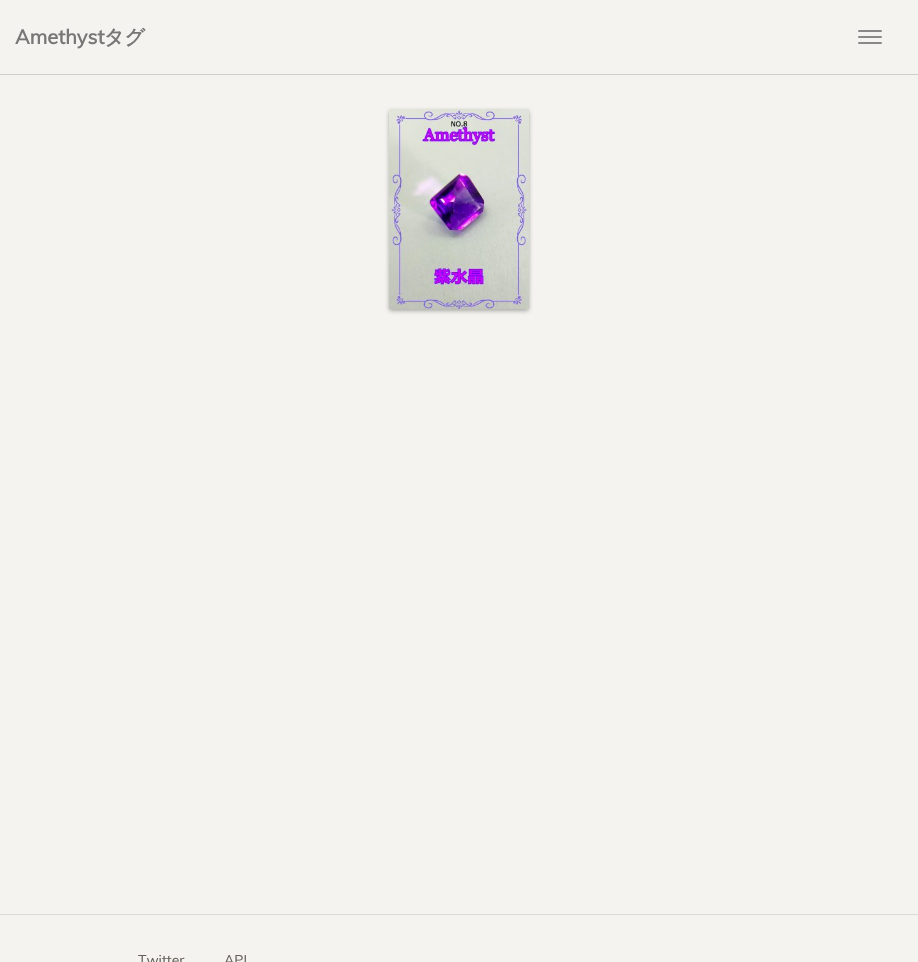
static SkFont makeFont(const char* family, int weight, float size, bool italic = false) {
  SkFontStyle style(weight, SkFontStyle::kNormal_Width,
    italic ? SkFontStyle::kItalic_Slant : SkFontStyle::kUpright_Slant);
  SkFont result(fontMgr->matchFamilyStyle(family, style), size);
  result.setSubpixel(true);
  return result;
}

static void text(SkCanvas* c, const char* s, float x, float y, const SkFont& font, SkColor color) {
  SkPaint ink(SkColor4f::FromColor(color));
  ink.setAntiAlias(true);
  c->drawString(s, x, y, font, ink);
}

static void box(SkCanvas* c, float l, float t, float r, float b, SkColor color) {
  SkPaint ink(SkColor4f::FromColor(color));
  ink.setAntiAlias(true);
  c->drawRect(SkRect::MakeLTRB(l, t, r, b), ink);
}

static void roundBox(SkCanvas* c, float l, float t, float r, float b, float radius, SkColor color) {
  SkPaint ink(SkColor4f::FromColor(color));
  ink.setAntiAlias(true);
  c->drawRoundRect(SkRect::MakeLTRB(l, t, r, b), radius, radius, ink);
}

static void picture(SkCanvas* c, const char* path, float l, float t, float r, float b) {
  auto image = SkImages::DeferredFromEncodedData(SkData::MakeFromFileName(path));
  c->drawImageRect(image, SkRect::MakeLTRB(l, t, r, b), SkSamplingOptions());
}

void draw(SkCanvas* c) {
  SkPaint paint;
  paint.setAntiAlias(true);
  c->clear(0xfff4f3ef);
  box(c, 0, 74, 918, 75, 0xffcfcfca);
  SkFont face1 = makeFont("Muli", 700, 20);
  text(c, "Amethyst", 15, 44, face1, 0xff777777);
  SkFont face2 = makeFont("WenQuanYi Zen Hei", 700, 20);
  text(c, "タグ", 104, 44, face2, 0xff777777);
  roundBox(c, 858, 30, 882, 32, 1, 0xff888888);
  roundBox(c, 858, 36, 882, 38, 1, 0xff888888);
  roundBox(c, 858, 42, 882, 44, 1, 0xff888888);
  paint.setColor(0x4d000000);
  paint.setMaskFilter(SkMaskFilter::MakeBlur(kNormal_SkBlurStyle, 2));
  c->drawRoundRect(SkRect::MakeLTRB(389, 111, 529, 311), 3, 3, paint);
  paint.setMaskFilter(nullptr);
  picture(c, "img_01.png", 389, 109, 529, 309);
  box(c, 0, 914, 918, 915, 0xffdcdbd7);
  SkFont face3 = makeFont("Muli", 400, 14);
  text(c, "Twitter", 138, 965, face3, 0xff66615b);
  text(c, "API", 224, 965, face3, 0xff66615b);
}
